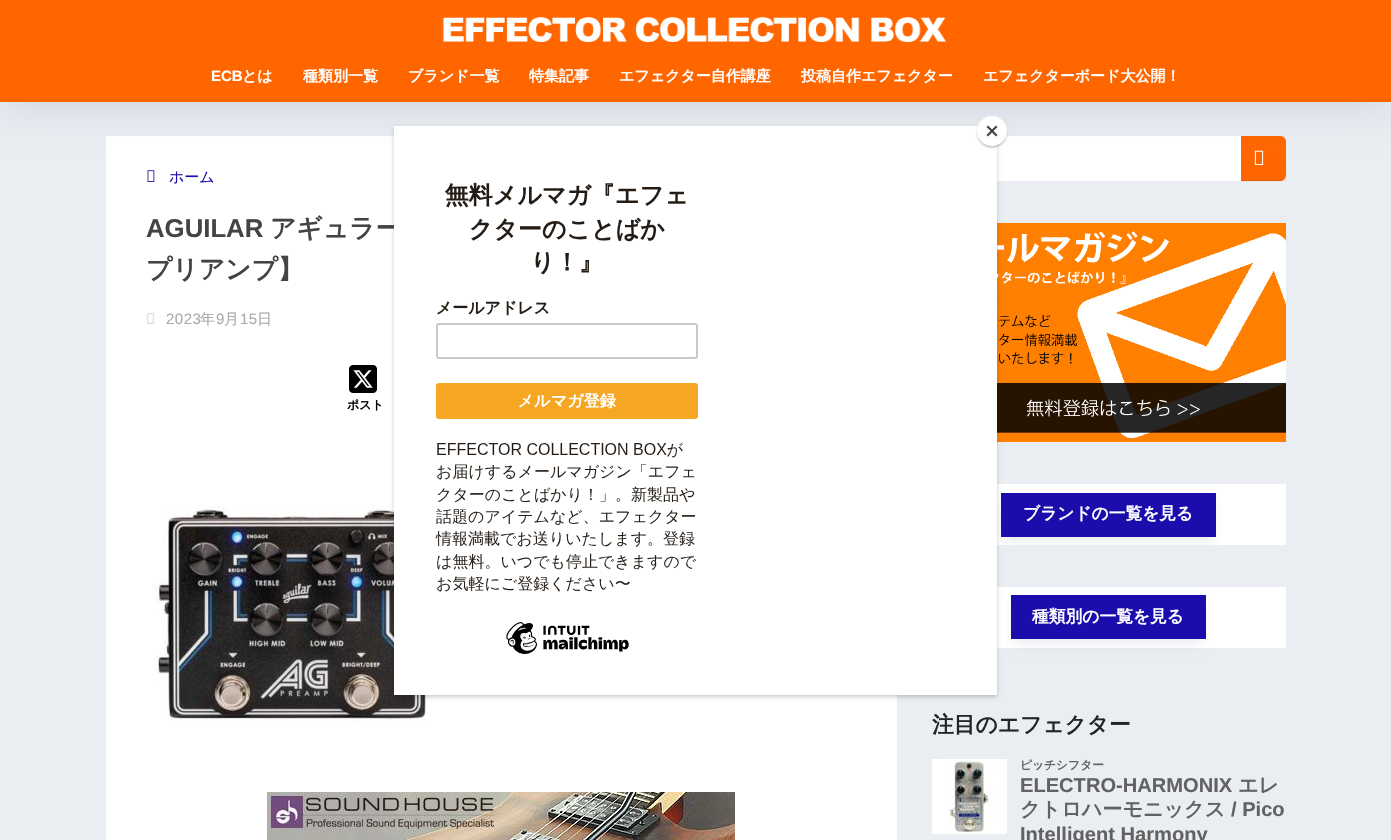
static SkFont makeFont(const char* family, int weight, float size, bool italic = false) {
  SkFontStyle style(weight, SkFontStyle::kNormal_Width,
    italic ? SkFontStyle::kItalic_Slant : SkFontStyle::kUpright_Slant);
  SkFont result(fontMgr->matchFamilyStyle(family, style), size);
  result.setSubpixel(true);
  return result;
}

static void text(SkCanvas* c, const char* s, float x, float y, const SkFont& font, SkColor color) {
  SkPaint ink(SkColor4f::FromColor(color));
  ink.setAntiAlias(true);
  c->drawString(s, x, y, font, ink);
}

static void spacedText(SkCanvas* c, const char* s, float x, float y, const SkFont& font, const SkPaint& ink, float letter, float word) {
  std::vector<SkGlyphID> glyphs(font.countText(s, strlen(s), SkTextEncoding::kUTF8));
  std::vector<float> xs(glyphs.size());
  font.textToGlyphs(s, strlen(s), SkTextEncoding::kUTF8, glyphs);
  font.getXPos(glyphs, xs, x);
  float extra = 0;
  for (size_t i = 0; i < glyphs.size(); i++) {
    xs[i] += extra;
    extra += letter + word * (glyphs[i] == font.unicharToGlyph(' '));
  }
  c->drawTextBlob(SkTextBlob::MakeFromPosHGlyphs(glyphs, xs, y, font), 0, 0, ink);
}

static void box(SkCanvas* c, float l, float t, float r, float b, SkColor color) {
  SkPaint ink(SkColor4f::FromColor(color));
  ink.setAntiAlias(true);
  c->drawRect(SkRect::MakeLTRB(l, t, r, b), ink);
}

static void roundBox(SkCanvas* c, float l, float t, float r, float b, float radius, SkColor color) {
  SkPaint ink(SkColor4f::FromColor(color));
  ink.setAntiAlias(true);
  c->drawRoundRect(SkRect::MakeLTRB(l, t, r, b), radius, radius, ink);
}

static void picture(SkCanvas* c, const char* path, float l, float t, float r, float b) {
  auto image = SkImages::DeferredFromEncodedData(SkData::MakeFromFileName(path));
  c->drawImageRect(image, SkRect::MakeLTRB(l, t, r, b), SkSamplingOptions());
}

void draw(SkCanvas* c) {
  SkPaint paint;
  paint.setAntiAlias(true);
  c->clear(0xffeaedf2);
  box(c, 106, 136, 897, 840, 0xffffffff);
  picture(c, "img_02.png", 147, 170, 155, 182);
  paint.setColor(0x1a001e64);
  paint.setMaskFilter(SkMaskFilter::MakeBlur(kNormal_SkBlurStyle, 0.5f));
  c->drawRoundRect(SkRect::MakeLTRB(932, 136, 1286, 181), 6, 6, paint);
  paint.setMaskFilter(nullptr);
  c->save();
  c->clipRect(SkRect::MakeLTRB(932, 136, 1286, 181));
  paint.setColor(0x1a000c42);
  paint.setMaskFilter(SkMaskFilter::MakeBlur(kNormal_SkBlurStyle, 6.5f));
  c->drawRoundRect(SkRect::MakeLTRB(935, 145, 1283, 184), 3, 3, paint);
  paint.setMaskFilter(nullptr);
  c->restore();
  roundBox(c, 932, 136, 1286, 181, 6, 0xffffffff);
  paint.setColor(0xffff6600);
  c->drawPath(SkPathBuilder().moveTo(1241, 136).lineTo(1280, 136).cubicTo(1283.5f, 136, 1286, 138.5f, 1286, 142).lineTo(1286, 175).cubicTo(1286, 178.5f, 1283.5f, 181, 1280, 181).lineTo(1241, 181).close().detach(), paint);
  picture(c, "img_07.png", 1254, 150, 1264, 165);
  paint.setColor(0x26000c42);
  paint.setMaskFilter(SkMaskFilter::MakeBlur(kNormal_SkBlurStyle, 22.5f));
  c->drawRect(SkRect::MakeLTRB(0, 0, 1391, 102), paint);
  paint.setMaskFilter(nullptr);
  box(c, 0, 0, 1391, 102, 0xffff6600);
  picture(c, "img_01.png", 442, 17, 947, 42);
  SkFont face1 = makeFont("Liberation Sans", 700, 15);
  text(c, "ECB", 211, 81, face1, 0xffffffff);
  SkFont face2 = makeFont("WenQuanYi Zen Hei", 700, 15);
  text(c, "とは", 242, 81, face2, 0xffffffff);
  text(c, "種類別一覧", 303, 81, face2, 0xffffffff);
  text(c, "ブランド一覧", 408, 81, face2, 0xffffffff);
  text(c, "特集記事", 529, 81, face2, 0xffffffff);
  text(c, "エフェクター自作講座", 619, 81, face2, 0xffffffff);
  text(c, "投稿自作エフェクター", 801, 81, face2, 0xffffffff);
  text(c, "エフェクターボード大公開！", 983, 81, face2, 0xffffffff);
  SkFont face3 = makeFont("WenQuanYi Zen Hei", 500, 15);
  text(c, "ホーム", 169, 182, face3, 0xff1a0dab);
  SkFont face4 = makeFont("Liberation Sans", 700, 25.75f);
  text(c, "AGUILAR", 146, 237, face4, 0xff444444);
  SkFont face5 = makeFont("WenQuanYi Zen Hei", 700, 25.75f);
  text(c, "アギュラー", 270, 237, face5, 0xff444444);
  text(c, "プリアンプ】", 146, 278, face5, 0xff444444);
  picture(c, "img_03.png", 147, 313, 154, 324);
  SkFont face6 = makeFont("Liberation Sans", 400, 15);
  paint.setColor(0xffa5aaaf);
  spacedText(c, "2023", 166, 324, face6, paint, 0.5f, 0);
  spacedText(c, "年", 200, 324, face3, paint, 0.5f, 0);
  spacedText(c, "9", 216, 324, face6, paint, 0.5f, 0);
  spacedText(c, "月", 224, 324, face3, paint, 0.5f, 0);
  spacedText(c, "15", 240, 324, face6, paint, 0.5f, 0);
  spacedText(c, "日", 257, 324, face3, paint, 0.5f, 0);
  picture(c, "img_04.png", 349, 365, 377, 393);
  SkFont face7 = makeFont("WenQuanYi Zen Hei", 700, 12);
  text(c, "ポスト", 347, 409, face7, 0xff000000);
  picture(c, "img_05.png", 154, 506, 429, 721);
  picture(c, "img_06.png", 267, 792, 735, 840);
  box(c, 1241, 180, 1283, 181, 0x1a000000);
  picture(c, "img_08.png", 997, 223, 1286, 442);
  box(c, 997, 484, 1286, 545, 0xffffffff);
  c->save();
  c->clipRect(SkRect::MakeLTRB(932, 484, 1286, 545));
  paint.setColor(0x1a000c42);
  paint.setMaskFilter(SkMaskFilter::MakeBlur(kNormal_SkBlurStyle, 6.5f));
  c->drawRect(SkRect::MakeLTRB(1004, 502, 1213, 540), paint);
  paint.setMaskFilter(nullptr);
  c->restore();
  box(c, 1001, 493, 1216, 537, 0xff1a0dab);
  SkFont face8 = makeFont("WenQuanYi Zen Hei", 700, 16.75f);
  text(c, "ブランドの一覧を見る", 1023, 519, face8, 0xffffffff);
  box(c, 997, 587, 1286, 648, 0xffffffff);
  paint.setMaskFilter(SkMaskFilter::MakeBlur(kNormal_SkBlurStyle, 6.5f));
  c->drawRect(SkRect::MakeLTRB(1014, 604, 1203, 642), paint);
  paint.setMaskFilter(nullptr);
  box(c, 1011, 595, 1206, 639, 0xff1a0dab);
  text(c, "種類別の一覧を見る", 1032, 622, face8, 0xffffffff);
  SkFont face9 = makeFont("WenQuanYi Zen Hei", 700, 21.75f);
  text(c, "注目のエフェクター", 932, 732, face9, 0xff252525);
  picture(c, "img_09.png", 932, 759, 1007, 834);
  SkFont face10 = makeFont("WenQuanYi Zen Hei", 700, 11.75f);
  text(c, "ピッチシフター", 1020, 769, face10, 0xff626262);
  SkFont face11 = makeFont("Liberation Sans", 700, 20.1f);
  text(c, "ELECTRO-HARMONIX", 1020, 792, face11, 0xff626262);
  SkFont face12 = makeFont("WenQuanYi Zen Hei", 700, 20.1f);
  text(c, "エレ", 1238, 792, face12, 0xff626262);
  text(c, "クトロハーモニックス", 1020, 816, face12, 0xff626262);
  text(c, "/ Pico", 1231, 816, face11, 0xff626262);
  text(c, "Intelligent Harmony", 1020, 841, face11, 0xff626262);
  paint.setColor(0x33000000);
  paint.setMaskFilter(SkMaskFilter::MakeBlur(kNormal_SkBlurStyle, 2));
  c->drawRect(SkRect::MakeLTRB(394, 128, 997, 697), paint);
  paint.setMaskFilter(nullptr);
  picture(c, "img_10.png", 394, 126, 997, 695);
  paint.setMaskFilter(SkMaskFilter::MakeBlur(kNormal_SkBlurStyle, 1));
  c->drawRoundRect(SkRect::MakeLTRB(977, 118, 1007, 148), 15, 15, paint);
  paint.setMaskFilter(nullptr);
  paint.setColor(0xffffffff);
  c->drawCircle(992, 131, 15, paint);
  paint.setColor(0xff414141);
  c->drawPath(SkPathBuilder().moveTo(996, 125.5f).lineTo(997.5f, 127).lineTo(988, 136.5f).lineTo(986.5f, 135).close().detach(), paint);
  c->drawPath(SkPathBuilder().moveTo(986.5f, 127).lineTo(988, 125.5f).lineTo(997.5f, 135).lineTo(996, 136.5f).close().detach(), paint);
}
